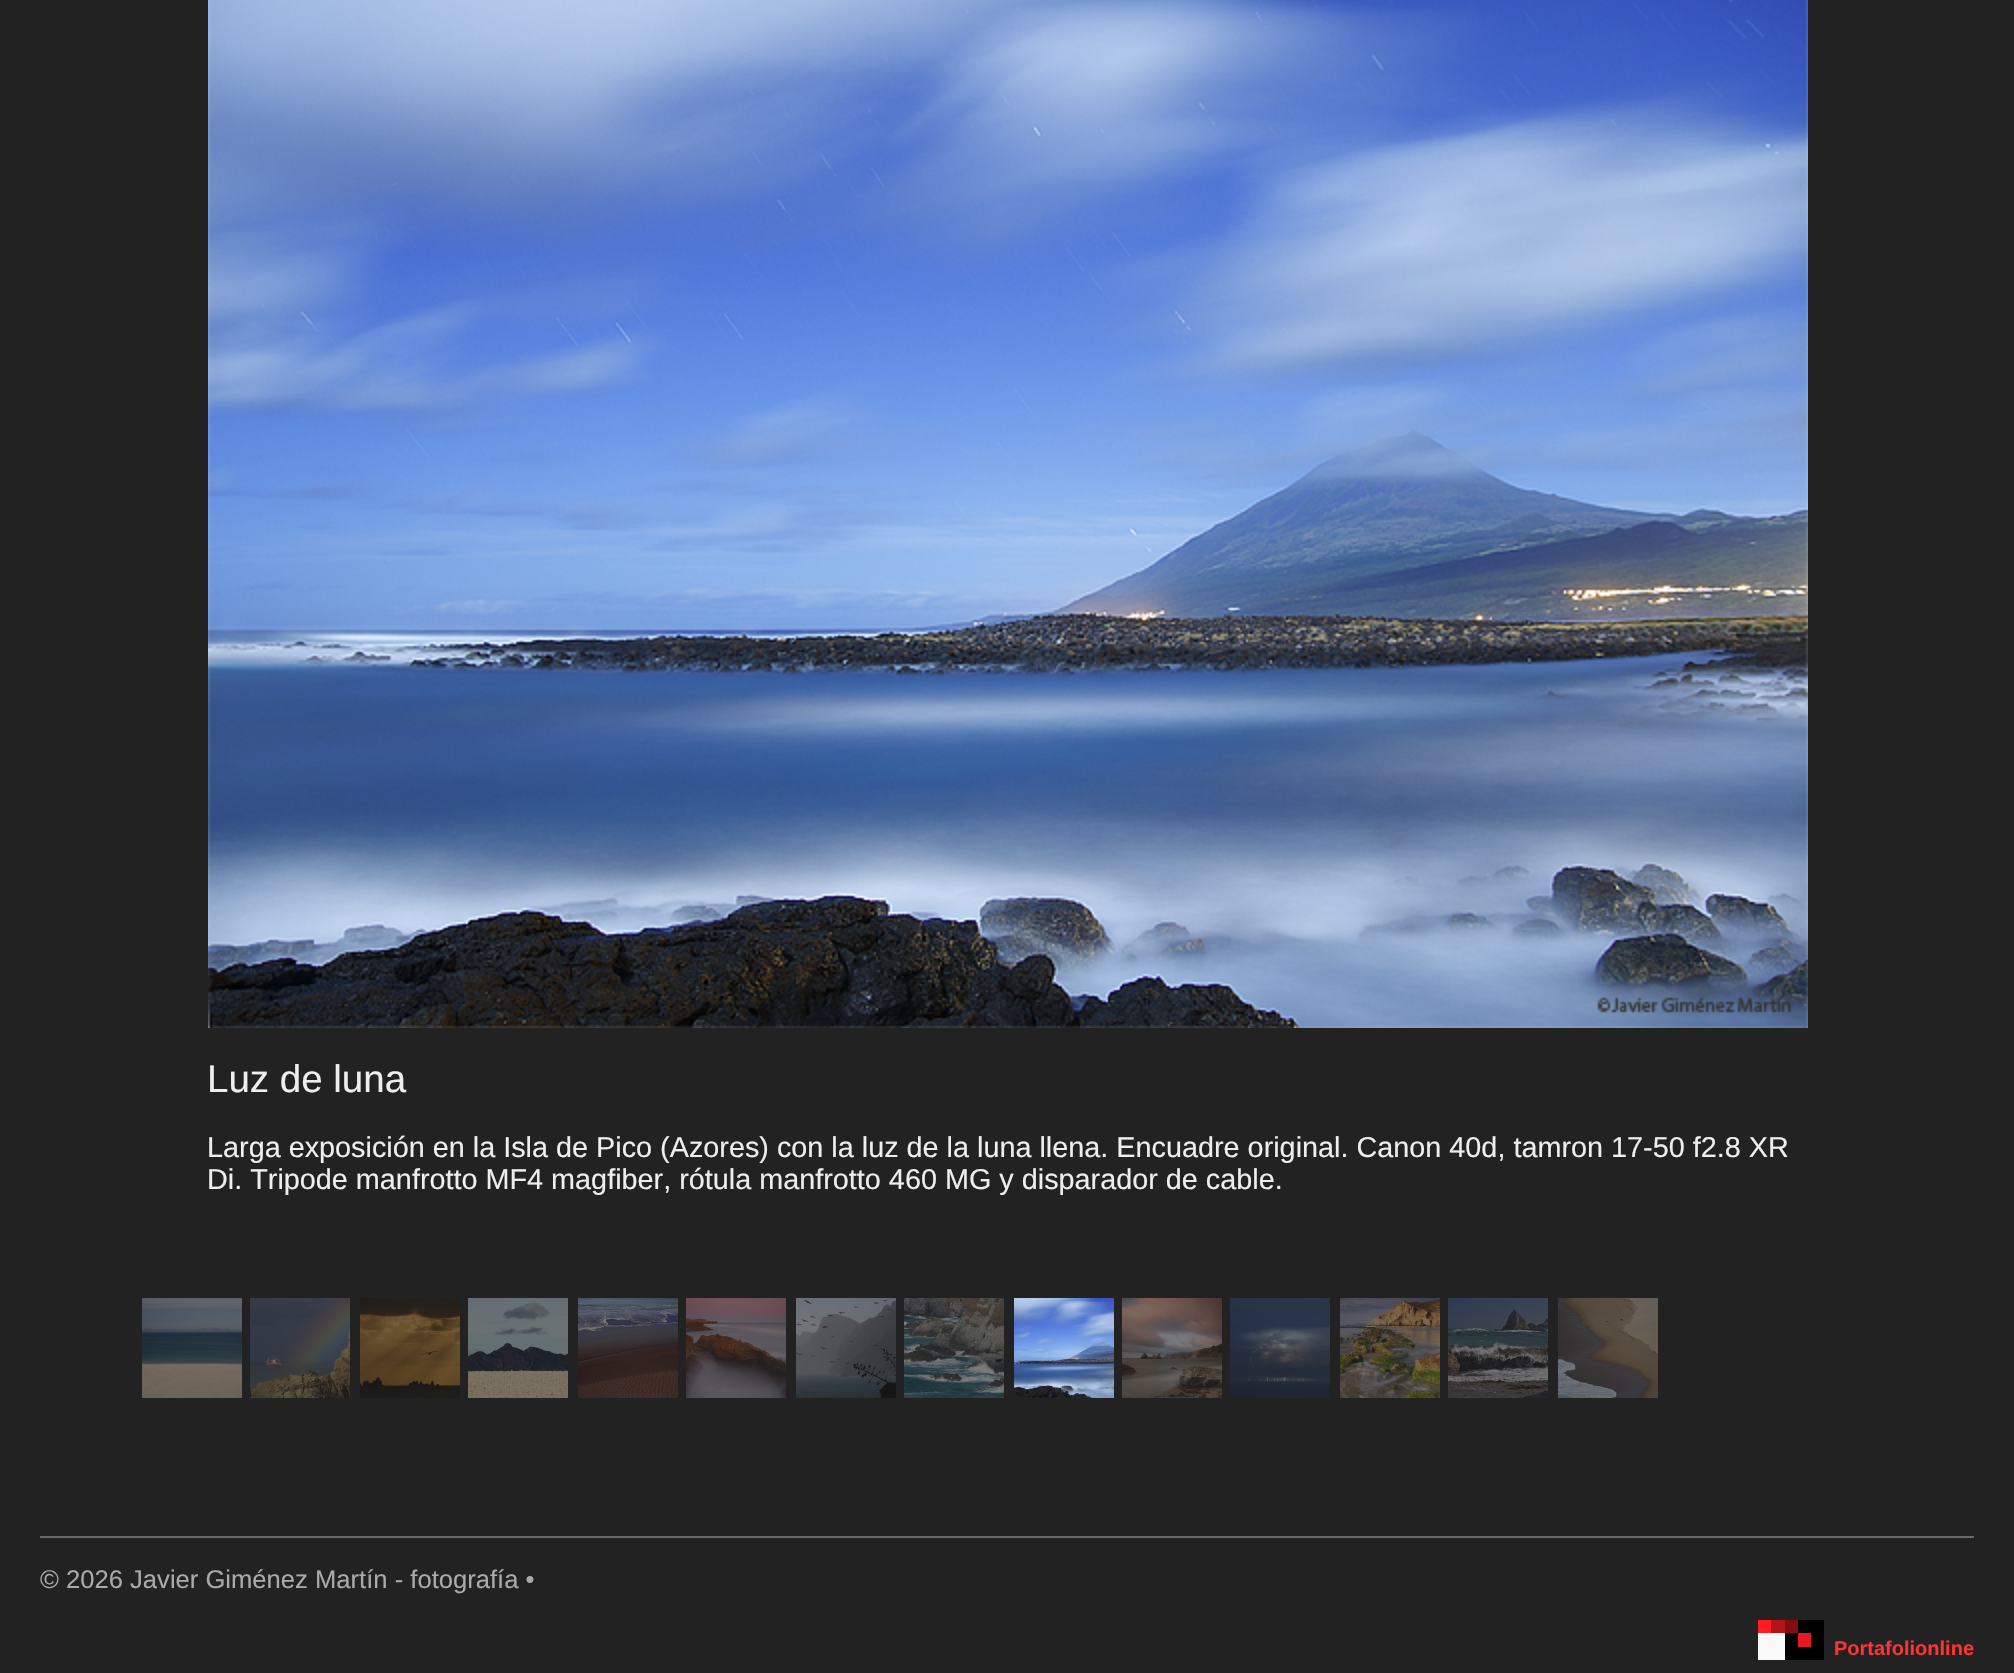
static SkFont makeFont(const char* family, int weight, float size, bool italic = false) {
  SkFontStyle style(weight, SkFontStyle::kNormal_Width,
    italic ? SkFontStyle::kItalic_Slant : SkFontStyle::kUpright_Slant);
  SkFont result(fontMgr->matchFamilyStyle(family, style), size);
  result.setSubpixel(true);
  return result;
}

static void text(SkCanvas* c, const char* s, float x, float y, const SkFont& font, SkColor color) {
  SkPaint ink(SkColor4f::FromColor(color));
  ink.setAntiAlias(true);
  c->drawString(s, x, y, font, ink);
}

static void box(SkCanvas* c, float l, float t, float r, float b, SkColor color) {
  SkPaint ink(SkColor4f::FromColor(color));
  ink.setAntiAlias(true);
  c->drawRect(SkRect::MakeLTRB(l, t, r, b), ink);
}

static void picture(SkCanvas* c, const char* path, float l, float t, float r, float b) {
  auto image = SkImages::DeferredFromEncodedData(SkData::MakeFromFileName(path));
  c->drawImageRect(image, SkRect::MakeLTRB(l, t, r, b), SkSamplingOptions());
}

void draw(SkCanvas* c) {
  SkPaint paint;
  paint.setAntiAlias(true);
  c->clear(0xff222222);
  picture(c, "img_01.png", 208, 0, 1808, 1028);
  SkFont face1 = makeFont("Liberation Sans", 400, 38.5f);
  text(c, "Luz de luna", 207, 1092, face1, 0xffeeeeee);
  SkFont face2 = makeFont("Liberation Sans", 400, 28.8f);
  text(c, "Larga exposición en la Isla de Pico (Azores) con la luz de la luna llena. Encuadre original. Canon 40d, tamron 17-50 f2.8 XR", 207, 1157, face2, 0xffeeeeee);
  text(c, "Di. Tripode manfrotto MF4 magfiber, rótula manfrotto 460 MG y disparador de cable.", 207, 1189, face2, 0xffeeeeee);
  picture(c, "img_02.png", 142, 1298, 242, 1398);
  picture(c, "img_03.png", 250, 1298, 350, 1398);
  picture(c, "img_04.png", 360, 1298, 460, 1398);
  picture(c, "img_05.png", 468, 1298, 568, 1398);
  picture(c, "img_06.png", 578, 1298, 678, 1398);
  picture(c, "img_07.png", 686, 1298, 786, 1398);
  picture(c, "img_08.png", 796, 1298, 896, 1398);
  picture(c, "img_09.png", 904, 1298, 1004, 1398);
  picture(c, "img_10.png", 1014, 1298, 1114, 1398);
  picture(c, "img_11.png", 1122, 1298, 1222, 1398);
  picture(c, "img_12.png", 1230, 1298, 1330, 1398);
  picture(c, "img_13.png", 1340, 1298, 1440, 1398);
  picture(c, "img_14.png", 1448, 1298, 1548, 1398);
  picture(c, "img_15.png", 1558, 1298, 1658, 1398);
  box(c, 40, 1536, 1974, 1538, 0xff6a6a6a);
  SkFont face3 = makeFont("Liberation Sans", 400, 25.6f);
  text(c, "© 2026 Javier Giménez Martín - fotografía •", 40, 1588, face3, 0xffaaaaaa);
  box(c, 1758, 1633, 1785, 1660, 0xfff9f9f9);
  box(c, 1785, 1620, 1824, 1660, 0xff000000);
  box(c, 1798, 1633, 1811, 1647, 0xffe5191f);
  box(c, 1758, 1620, 1771, 1633, 0xffff1c23);
  box(c, 1771, 1620, 1785, 1633, 0xffb21418);
  box(c, 1785, 1620, 1798, 1633, 0xff7f0e11);
  SkFont face4 = makeFont("Liberation Sans", 700, 20);
  text(c, "Portafolionline", 1834, 1655, face4, 0xffff3333);
}
